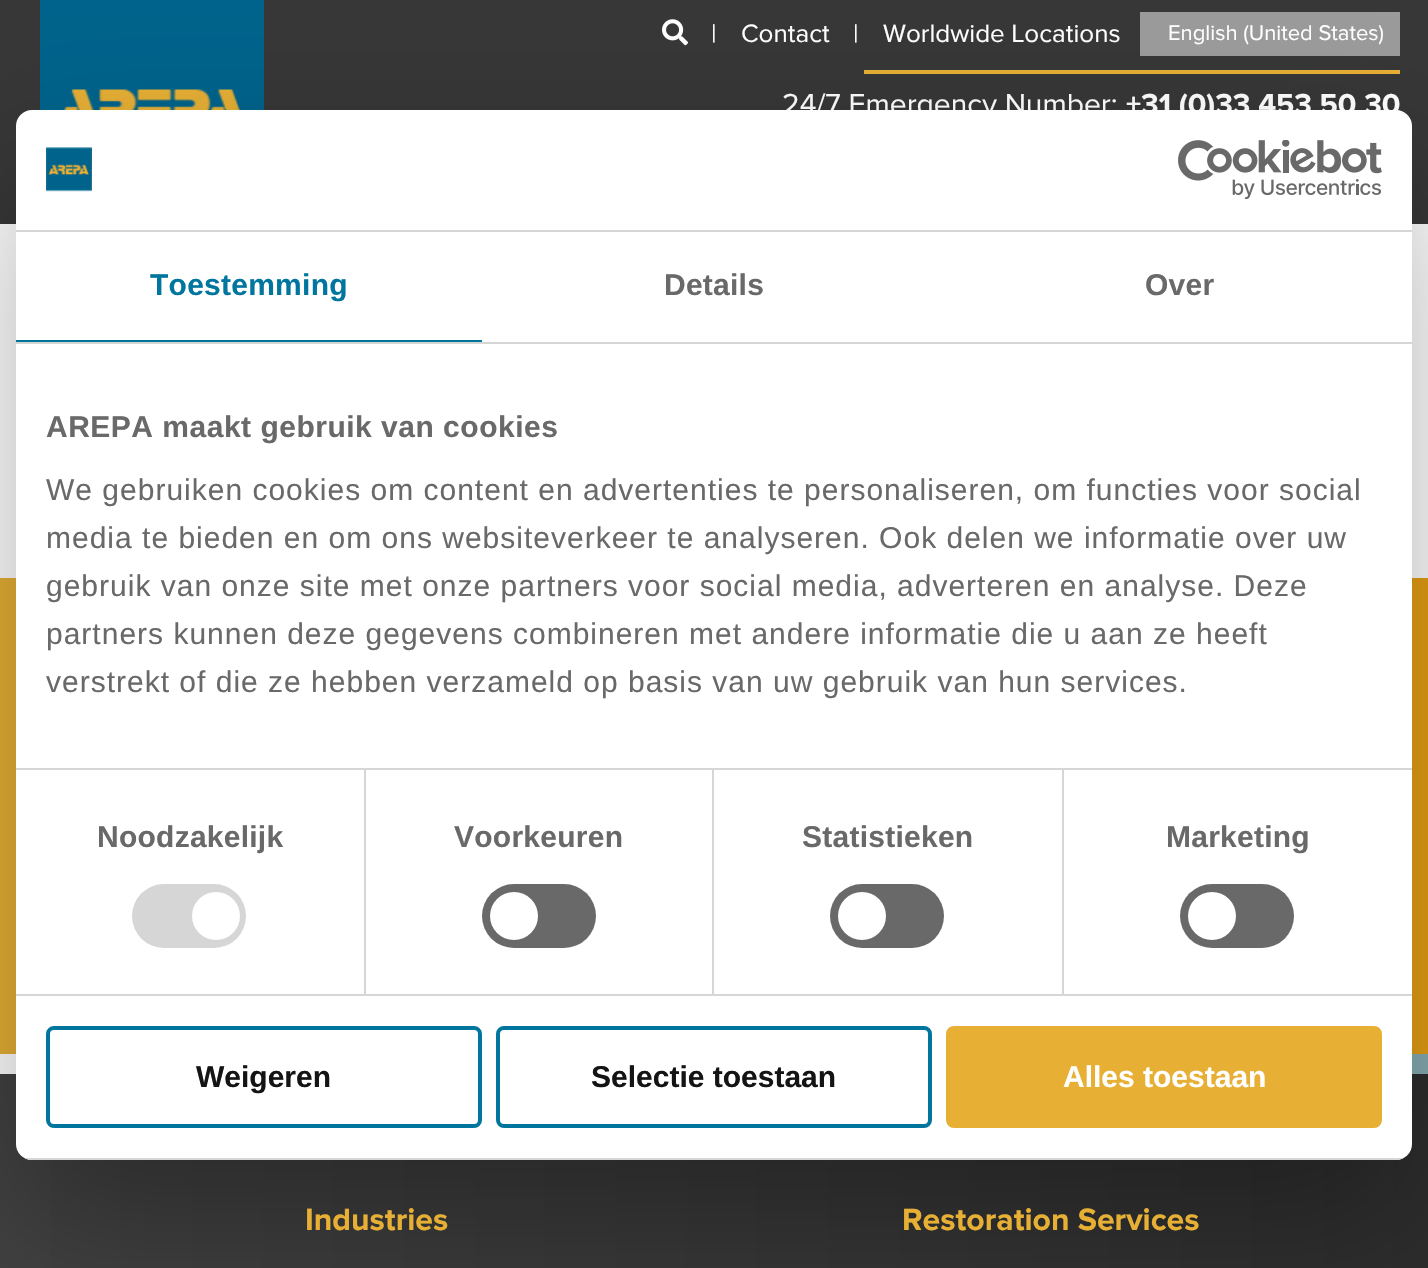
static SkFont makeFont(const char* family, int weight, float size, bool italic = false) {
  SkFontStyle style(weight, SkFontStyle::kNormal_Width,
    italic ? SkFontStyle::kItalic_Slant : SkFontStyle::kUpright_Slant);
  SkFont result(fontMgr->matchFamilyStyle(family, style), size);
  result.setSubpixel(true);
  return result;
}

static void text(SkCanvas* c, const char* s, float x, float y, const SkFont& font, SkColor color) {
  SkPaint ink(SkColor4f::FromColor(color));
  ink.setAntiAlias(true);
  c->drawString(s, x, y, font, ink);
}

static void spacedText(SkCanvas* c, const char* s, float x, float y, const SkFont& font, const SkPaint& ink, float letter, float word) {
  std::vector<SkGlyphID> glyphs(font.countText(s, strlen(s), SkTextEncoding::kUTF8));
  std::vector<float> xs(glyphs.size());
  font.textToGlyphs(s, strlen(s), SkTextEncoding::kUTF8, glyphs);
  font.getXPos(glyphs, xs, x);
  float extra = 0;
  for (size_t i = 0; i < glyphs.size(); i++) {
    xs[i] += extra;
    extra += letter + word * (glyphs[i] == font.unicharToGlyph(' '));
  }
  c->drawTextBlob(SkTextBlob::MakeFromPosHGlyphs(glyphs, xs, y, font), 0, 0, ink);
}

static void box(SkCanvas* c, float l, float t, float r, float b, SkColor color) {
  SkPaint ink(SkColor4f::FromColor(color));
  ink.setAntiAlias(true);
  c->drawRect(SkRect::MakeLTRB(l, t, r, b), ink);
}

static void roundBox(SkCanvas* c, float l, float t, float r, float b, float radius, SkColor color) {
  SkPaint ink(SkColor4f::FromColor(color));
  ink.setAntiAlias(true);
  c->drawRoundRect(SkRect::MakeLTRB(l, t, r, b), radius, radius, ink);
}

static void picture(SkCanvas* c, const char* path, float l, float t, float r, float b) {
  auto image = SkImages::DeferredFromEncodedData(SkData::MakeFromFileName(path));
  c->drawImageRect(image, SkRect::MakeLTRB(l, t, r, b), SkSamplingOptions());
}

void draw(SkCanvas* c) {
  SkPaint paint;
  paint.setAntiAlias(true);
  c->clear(0xffffffff);
  box(c, 0, 0, 1428, 224, 0xff373737);
  box(c, 40, 0, 264, 110, 0xff00638b);
  picture(c, "img_01.png", 63, 89, 241, 110);
  picture(c, "img_02.png", 662, 19, 688, 46);
  SkFont face1 = makeFont("Proxima Nova", 400, 26);
  text(c, "|", 711, 42, face1, 0xffffffff);
  text(c, "Contact", 741, 42, face1, 0xffffffff);
  text(c, "|", 853, 42, face1, 0xffffffff);
  text(c, "Worldwide Locations", 883, 42, face1, 0xffffffff);
  box(c, 1140, 12, 1400, 56, 0xff9b9b9b);
  SkFont face2 = makeFont("Proxima Nova", 400, 22);
  text(c, "English (United States)", 1168, 40, face2, 0xffffffff);
  box(c, 864, 70, 1400, 74, 0xffe7b035);
  SkFont face3 = makeFont("Proxima Nova", 400, 30);
  text(c, "24/7 Emergency Number:", 782, 114, face3, 0xffffffff);
  SkFont face4 = makeFont("Proxima Nova", 700, 30);
  text(c, "+31 (0)33 453 50 30", 1126, 114, face4, 0xffffffff);
  {
    const SkColor colors[] = {0xffe7b035, 0xffe6a014};
    const float stops[] = {0.01f, 1};
    const SkPoint ends[] = {{0, 816}, {1428, 816}};
    paint.setShader(SkGradientShader::MakeLinear(ends, colors, stops, 2, SkTileMode::kClamp));
    paint.setAlpha(255);
  }
  c->drawRect(SkRect::MakeLTRB(0, 578, 1428, 1054), paint);
  box(c, 1412, 1054, 1428, 1074, 0xff87aeb4);
  {
    const SkColor colors[] = {0xff414141, 0xff2d2d2d};
    const float stops[] = {0.01f, 1};
    const SkPoint ends[] = {{0, 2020}, {1428, 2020}};
    paint.setShader(SkGradientShader::MakeLinear(ends, colors, stops, 2, SkTileMode::kClamp));
    paint.setAlpha(255);
  }
  c->drawRect(SkRect::MakeLTRB(0, 1074, 1428, 1268), paint);
  paint.setShader(nullptr);
  paint.setColor(0x4d000000);
  paint.setMaskFilter(SkMaskFilter::MakeBlur(kNormal_SkBlurStyle, 68));
  c->drawRoundRect(SkRect::MakeLTRB(16, 174, 1412, 1224), 16, 16, paint);
  paint.setMaskFilter(nullptr);
  roundBox(c, 16, 110, 1412, 1160, 16, 0xffffffff);
  box(c, 16, 230, 1412, 232, 0xffd6d6d6);
  picture(c, "img_03.png", 46, 147, 92, 192);
  picture(c, "img_04.png", 1178, 140, 1382, 200);
  box(c, 16, 342, 1412, 344, 0xffd6d6d6);
  box(c, 16, 340, 482, 342, 0xff00769f);
  SkFont face5 = makeFont("Liberation Sans", 700, 30);
  paint.setColor(0xff00769f);
  spacedText(c, "Toestemming", 150, 295, face5, paint, 0.25f, 0);
  paint.setColor(0xff696969);
  spacedText(c, "Details", 664, 295, face5, paint, 0.25f, 0);
  spacedText(c, "Over", 1145, 295, face5, paint, 0.25f, 0);
  box(c, 16, 768, 1412, 770, 0xffd6d6d6);
  spacedText(c, "AREPA maakt gebruik van cookies", 46, 437, face5, paint, 0.5f, 0);
  SkFont face6 = makeFont("Liberation Sans", 400, 30);
  spacedText(c, "We gebruiken cookies om content en advertenties te personaliseren, om functies voor social", 46, 500, face6, paint, 1, 0);
  spacedText(c, "media te bieden en om ons websiteverkeer te analyseren. Ook delen we informatie over uw", 46, 548, face6, paint, 1, 0);
  spacedText(c, "gebruik van onze site met onze partners voor social media, adverteren en analyse. Deze", 46, 596, face6, paint, 1, 0);
  spacedText(c, "partners kunnen deze gegevens combineren met andere informatie die u aan ze heeft", 46, 644, face6, paint, 1, 0);
  spacedText(c, "verstrekt of die ze hebben verzameld op basis van uw gebruik van hun services.", 46, 692, face6, paint, 1, 0);
  box(c, 16, 994, 1412, 996, 0xffd6d6d6);
  box(c, 364, 770, 366, 994, 0xffd6d6d6);
  spacedText(c, "Noodzakelijk", 97, 847, face5, paint, 0.25f, 0);
  roundBox(c, 132, 884, 246, 948, 32, 0xffd6d6d6);
  paint.setColor(0xffffffff);
  c->drawCircle(216, 916, 24, paint);
  box(c, 712, 770, 714, 994, 0xffd6d6d6);
  paint.setColor(0xff696969);
  spacedText(c, "Voorkeuren", 454, 847, face5, paint, 0.25f, 0);
  roundBox(c, 482, 884, 596, 948, 32, 0xff696969);
  paint.setColor(0xffffffff);
  c->drawCircle(514, 916, 24, paint);
  box(c, 1062, 770, 1064, 994, 0xffd6d6d6);
  paint.setColor(0xff696969);
  spacedText(c, "Statistieken", 802, 847, face5, paint, 0.25f, 0);
  roundBox(c, 830, 884, 944, 948, 32, 0xff696969);
  paint.setColor(0xffffffff);
  c->drawCircle(862, 916, 24, paint);
  paint.setColor(0xff696969);
  spacedText(c, "Marketing", 1166, 847, face5, paint, 0.25f, 0);
  roundBox(c, 1180, 884, 1294, 948, 32, 0xff696969);
  paint.setColor(0xffffffff);
  c->drawCircle(1212, 916, 24, paint);
  c->save();
  c->clipPath(SkPathBuilder().moveTo(32, 110).lineTo(1396, 110).cubicTo(1405, 110, 1412, 117, 1412, 126).lineTo(1412, 1144).cubicTo(1412, 1153, 1405, 1160, 1396, 1160).lineTo(32, 1160).cubicTo(23, 1160, 16, 1153, 16, 1144).lineTo(16, 126).cubicTo(16, 117, 23, 110, 32, 110).close().detach(), true);
  box(c, 16, 1158, 1412, 1160, 0xffd6d6d6);
  c->restore();
  paint.setStyle(SkPaint::kStroke_Style);
  paint.setStrokeWidth(4);
  paint.setColor(0xff00769f);
  c->drawRoundRect(SkRect::MakeLTRB(48, 1028, 480, 1126), 6, 6, paint);
  text(c, "Weigeren", 196, 1087, face5, 0xff141414);
  c->drawRoundRect(SkRect::MakeLTRB(498, 1028, 930, 1126), 6, 6, paint);
  text(c, "Selectie toestaan", 591, 1087, face5, 0xff141414);
  paint.setStyle(SkPaint::kFill_Style);
  paint.setColor(0xffe7b035);
  c->drawRoundRect(SkRect::MakeLTRB(948, 1028, 1380, 1126), 6, 6, paint);
  paint.setStyle(SkPaint::kStroke_Style);
  c->drawRoundRect(SkRect::MakeLTRB(948, 1028, 1380, 1126), 6, 6, paint);
  text(c, "Alles toestaan", 1063, 1087, face5, 0xffffffff);
  SkFont face7 = makeFont("Proxima Nova", 700, 32);
  text(c, "Industries", 305, 1230, face7, 0xffe7b035);
  text(c, "Restoration Services", 902, 1230, face7, 0xffe7b035);
}
